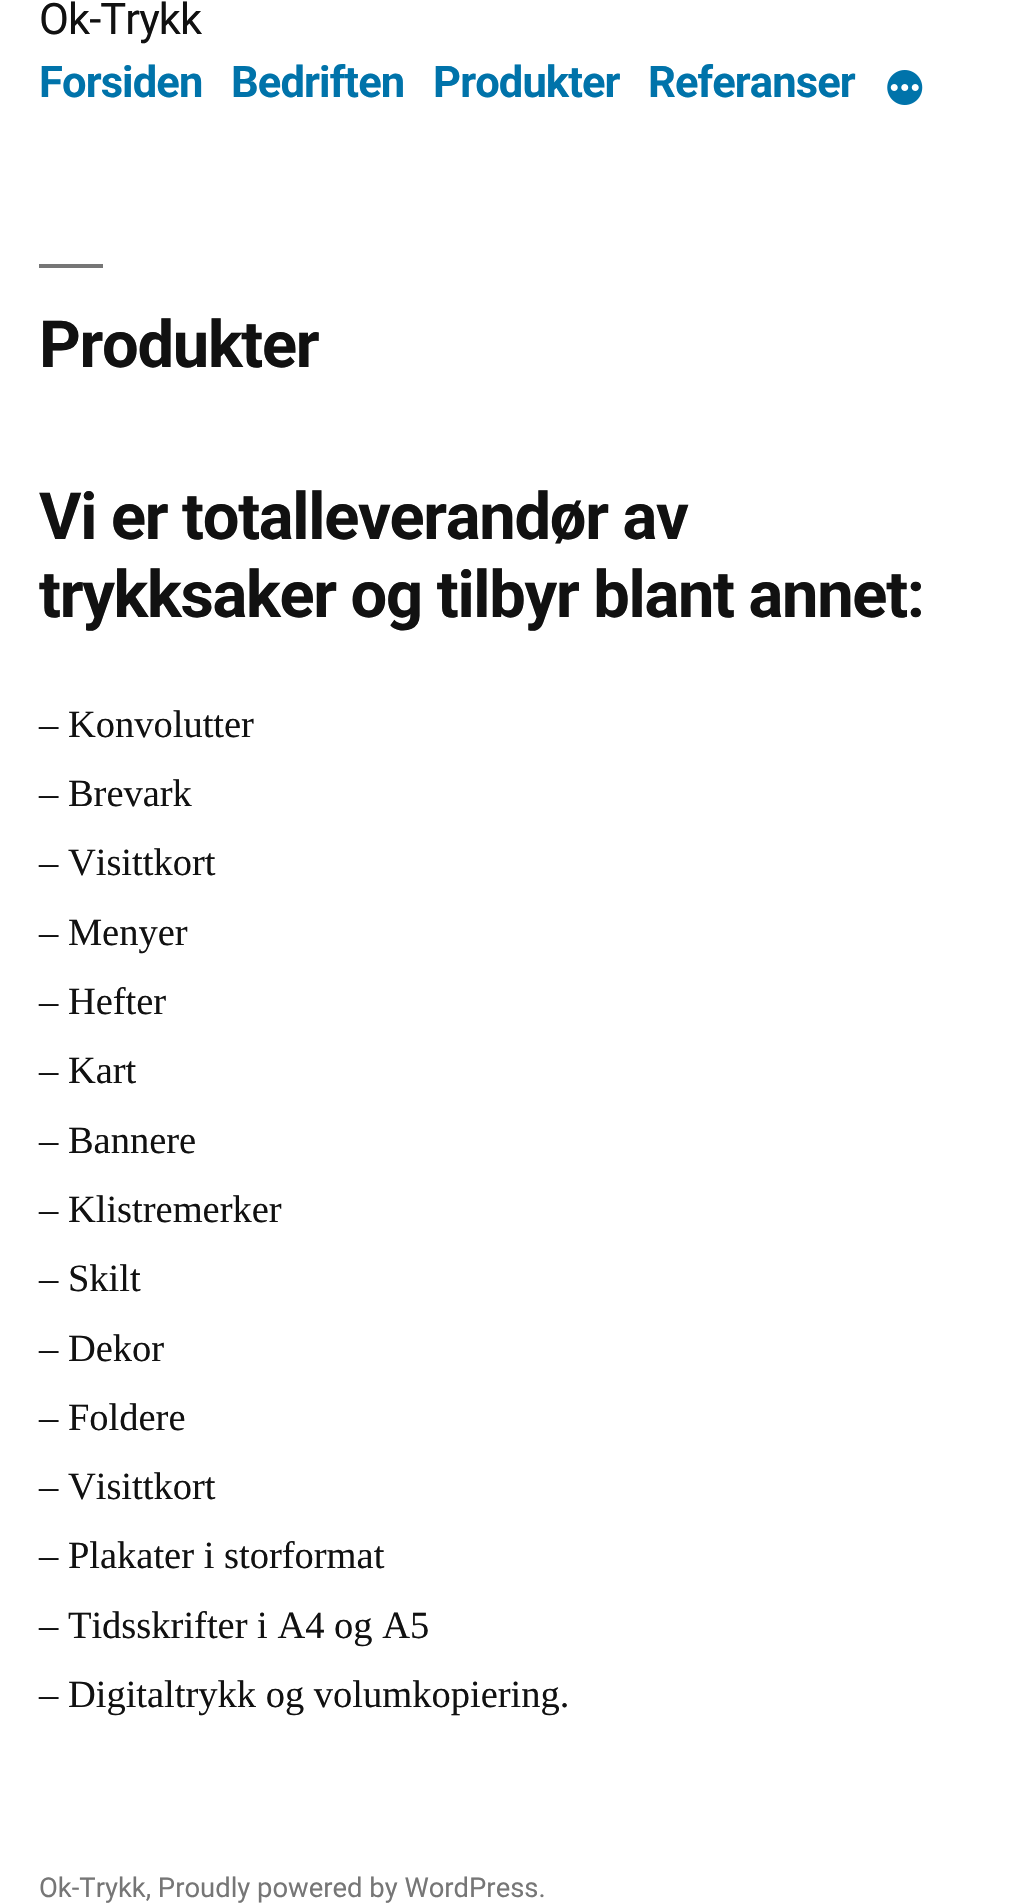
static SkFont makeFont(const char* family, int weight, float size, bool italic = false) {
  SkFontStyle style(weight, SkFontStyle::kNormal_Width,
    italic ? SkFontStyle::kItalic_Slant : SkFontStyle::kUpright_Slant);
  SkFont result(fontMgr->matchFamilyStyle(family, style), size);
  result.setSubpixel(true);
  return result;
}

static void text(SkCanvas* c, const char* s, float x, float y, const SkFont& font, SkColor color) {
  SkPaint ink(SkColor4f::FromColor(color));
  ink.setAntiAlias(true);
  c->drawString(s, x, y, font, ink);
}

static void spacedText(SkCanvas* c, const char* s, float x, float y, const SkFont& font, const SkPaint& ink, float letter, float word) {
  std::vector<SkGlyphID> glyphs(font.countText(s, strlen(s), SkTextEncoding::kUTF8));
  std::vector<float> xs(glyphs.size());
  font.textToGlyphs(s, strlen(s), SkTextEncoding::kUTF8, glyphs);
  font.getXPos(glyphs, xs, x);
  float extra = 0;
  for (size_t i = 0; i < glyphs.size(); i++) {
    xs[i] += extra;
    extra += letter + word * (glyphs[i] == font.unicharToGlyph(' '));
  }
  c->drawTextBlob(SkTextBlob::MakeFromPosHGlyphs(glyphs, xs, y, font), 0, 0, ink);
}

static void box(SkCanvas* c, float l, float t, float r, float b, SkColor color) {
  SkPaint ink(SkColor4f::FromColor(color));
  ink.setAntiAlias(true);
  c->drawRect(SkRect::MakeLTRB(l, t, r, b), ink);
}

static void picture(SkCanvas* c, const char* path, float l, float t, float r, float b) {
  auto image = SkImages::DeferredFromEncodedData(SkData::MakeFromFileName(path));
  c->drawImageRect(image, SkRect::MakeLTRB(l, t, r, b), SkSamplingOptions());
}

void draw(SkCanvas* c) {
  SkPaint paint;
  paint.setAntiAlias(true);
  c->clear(0xffffffff);
  SkFont face1 = makeFont("Roboto", 400, 43.5f);
  paint.setColor(0xff111111);
  spacedText(c, "Ok-Trykk", 39, 34, face1, paint, -0.9f, 0);
  SkFont face2 = makeFont("Roboto", 700, 43.5f);
  paint.setColor(0xff0073aa);
  spacedText(c, "Forsiden", 39, 97, face2, paint, -0.9f, 0);
  spacedText(c, "Bedriften", 231, 97, face2, paint, -0.9f, 0);
  spacedText(c, "Produkter", 433, 97, face2, paint, -0.9f, 0);
  spacedText(c, "Referanser", 648, 97, face2, paint, -0.9f, 0);
  picture(c, "img_01.png", 887, 70, 923, 105);
  box(c, 39, 264, 103, 268, 0xff767676);
  SkFont face3 = makeFont("Roboto", 700, 65);
  paint.setColor(0xff111111);
  spacedText(c, "Produkter", 39, 367, face3, paint, -1.3f, 0);
  spacedText(c, "Vi er totalleverandør av", 39, 539, face3, paint, -1.3f, 0);
  spacedText(c, "trykksaker og tilbyr blant annet:", 39, 617, face3, paint, -1.3f, 0);
  SkFont face4 = makeFont("Liberation Serif", 400, 38.5f);
  text(c, "– Konvolutter", 39, 737, face4, 0xff111111);
  text(c, "– Brevark", 39, 806, face4, 0xff111111);
  text(c, "– Visittkort", 39, 875, face4, 0xff111111);
  text(c, "– Menyer", 39, 945, face4, 0xff111111);
  text(c, "– Hefter", 39, 1014, face4, 0xff111111);
  text(c, "– Kart", 39, 1083, face4, 0xff111111);
  text(c, "– Bannere", 39, 1153, face4, 0xff111111);
  text(c, "– Klistremerker", 39, 1222, face4, 0xff111111);
  text(c, "– Skilt", 39, 1291, face4, 0xff111111);
  text(c, "– Dekor", 39, 1361, face4, 0xff111111);
  text(c, "– Foldere", 39, 1430, face4, 0xff111111);
  text(c, "– Visittkort", 39, 1499, face4, 0xff111111);
  text(c, "– Plakater i storformat", 39, 1568, face4, 0xff111111);
  text(c, "– Tidsskrifter i A4 og A5", 39, 1638, face4, 0xff111111);
  text(c, "– Digitaltrykk og volumkopiering.", 39, 1707, face4, 0xff111111);
  SkFont face5 = makeFont("Roboto", 400, 27.4f);
  text(c, "Ok-Trykk, Proudly powered by WordPress.", 39, 1897, face5, 0xff767676);
}
